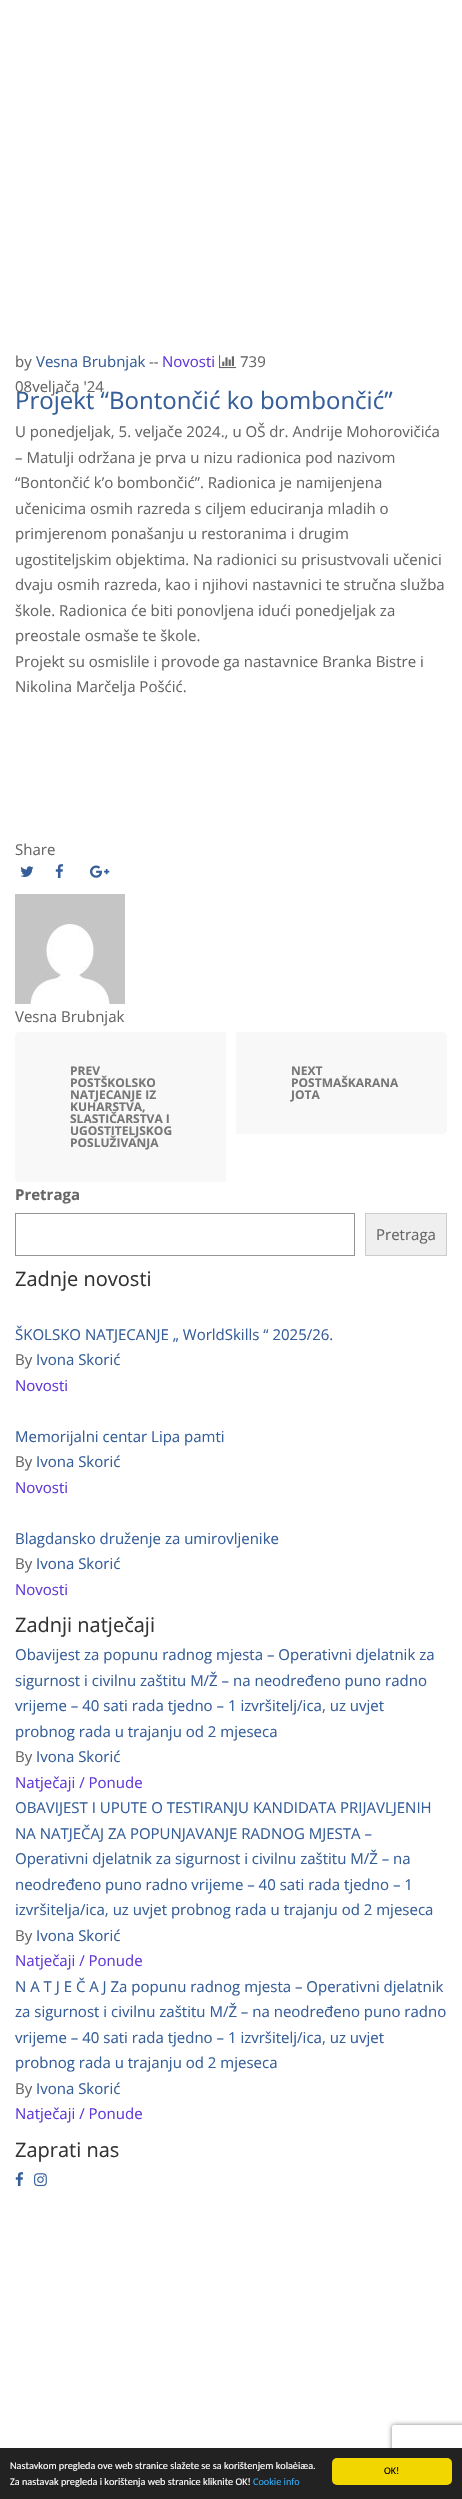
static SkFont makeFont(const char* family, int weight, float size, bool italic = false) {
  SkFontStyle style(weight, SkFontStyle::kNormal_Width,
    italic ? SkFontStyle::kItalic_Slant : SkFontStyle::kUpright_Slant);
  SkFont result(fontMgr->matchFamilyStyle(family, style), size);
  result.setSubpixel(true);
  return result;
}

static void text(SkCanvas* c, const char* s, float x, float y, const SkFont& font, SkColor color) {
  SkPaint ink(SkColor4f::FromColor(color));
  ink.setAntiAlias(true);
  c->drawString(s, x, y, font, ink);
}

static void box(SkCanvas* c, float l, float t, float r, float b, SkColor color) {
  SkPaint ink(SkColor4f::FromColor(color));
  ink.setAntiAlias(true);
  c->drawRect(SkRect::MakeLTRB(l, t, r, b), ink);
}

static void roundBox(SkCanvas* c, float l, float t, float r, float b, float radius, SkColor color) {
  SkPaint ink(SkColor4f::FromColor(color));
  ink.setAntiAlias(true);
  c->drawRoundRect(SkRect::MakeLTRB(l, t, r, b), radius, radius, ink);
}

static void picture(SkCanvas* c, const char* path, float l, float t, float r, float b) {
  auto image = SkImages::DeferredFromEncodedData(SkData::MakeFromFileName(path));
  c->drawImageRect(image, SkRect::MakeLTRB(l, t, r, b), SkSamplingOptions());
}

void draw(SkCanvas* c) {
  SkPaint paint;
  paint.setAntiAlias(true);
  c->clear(0xffffffff);
  SkFont face1 = makeFont("Open Sans", 400, 15);
  text(c, "by", 15, 367, face1, 0xff666666);
  text(c, "Vesna Brubnjak", 36, 367, face1, 0xff365e99);
  text(c, "--", 149, 367, face1, 0xff666666);
  text(c, "Novosti", 162, 367, face1, 0xff6238d7);
  picture(c, "img_01.png", 219, 355, 237, 369);
  text(c, "739", 240, 367, face1, 0xff666666);
  SkFont face2 = makeFont("Open Sans", 400, 24);
  text(c, "Projekt “Bontončić ko bombončić”", 15, 409, face2, 0xff365e99);
  text(c, "U ponedjeljak, 5. veljače 2024., u OŠ dr. Andrije Mohorovičića", 15, 437, face1, 0xff666666);
  text(c, "– Matulji održana je prva u nizu radionica pod nazivom", 15, 463, face1, 0xff666666);
  text(c, "“Bontončić k’o bombončić”. Radionica je namijenjena", 15, 488, face1, 0xff666666);
  text(c, "učenicima osmih razreda s ciljem educiranja mladih o", 15, 514, face1, 0xff666666);
  text(c, "primjerenom ponašanju u restoranima i drugim", 15, 539, face1, 0xff666666);
  text(c, "ugostiteljskim objektima. Na radionici su prisustvovali učenici", 15, 565, face1, 0xff666666);
  text(c, "dvaju osmih razreda, kao i njihovi nastavnici te stručna služba", 15, 590, face1, 0xff666666);
  text(c, "škole. Radionica će biti ponovljena idući ponedjeljak za", 15, 616, face1, 0xff666666);
  text(c, "preostale osmaše te škole.", 15, 641, face1, 0xff666666);
  text(c, "Projekt su osmislile i provode ga nastavnice Branka Bistre i", 15, 667, face1, 0xff666666);
  text(c, "Nikolina Marčelja Pošćić.", 15, 692, face1, 0xff666666);
  text(c, "Share", 15, 855, face1, 0xff666666);
  picture(c, "img_02.png", 20, 866, 34, 877);
  picture(c, "img_03.png", 55, 864, 64, 879);
  picture(c, "img_04.png", 90, 865, 110, 878);
  text(c, "08veljača '24", 15, 392, face1, 0xff666666);
  picture(c, "img_05.png", 15, 894, 125, 1004);
  text(c, "Vesna Brubnjak", 15, 1022, face1, 0xff666666);
  paint.setColor(0xfff8f8f8);
  c->drawPath(SkPathBuilder().moveTo(20, 1032).lineTo(226, 1032).lineTo(226, 1182).lineTo(20, 1182).cubicTo(17, 1182, 15, 1180, 15, 1177).lineTo(15, 1037).cubicTo(15, 1034, 17, 1032, 20, 1032).close().detach(), paint);
  SkFont face3 = makeFont("Open Sans", 700, 12);
  text(c, "PREV", 70, 1075, face3, 0xff777777);
  text(c, "POSTŠKOLSKO", 70, 1087, face3, 0xff777777);
  text(c, "NATJECANJE IZ", 70, 1099, face3, 0xff777777);
  text(c, "KUHARSTVA,", 70, 1111, face3, 0xff777777);
  text(c, "SLASTIČARSTVA I", 70, 1123, face3, 0xff777777);
  text(c, "UGOSTITELJSKOG", 70, 1135, face3, 0xff777777);
  text(c, "POSLUŽIVANJA", 70, 1147, face3, 0xff777777);
  c->drawPath(SkPathBuilder().moveTo(236, 1032).lineTo(442, 1032).cubicTo(445, 1032, 447, 1034, 447, 1037).lineTo(447, 1129).cubicTo(447, 1132, 445, 1134, 442, 1134).lineTo(236, 1134).close().detach(), paint);
  text(c, "NEXT", 291, 1075, face3, 0xff777777);
  text(c, "POSTMAŠKARANA", 291, 1087, face3, 0xff777777);
  text(c, "JOTA", 291, 1099, face3, 0xff777777);
  SkFont face4 = makeFont("Open Sans", 700, 15);
  text(c, "Pretraga", 15, 1200, face4, 0xff666666);
  paint.setStyle(SkPaint::kStroke_Style);
  paint.setStrokeWidth(1);
  paint.setColor(0xff949494);
  c->drawRect(SkRect::MakeLTRB(15.5f, 1213.5f, 354.5f, 1255.5f), paint);
  paint.setStyle(SkPaint::kFill_Style);
  paint.setColor(0xffefefef);
  c->drawRect(SkRect::MakeLTRB(365.5f, 1213.5f, 446.5f, 1255.5f), paint);
  paint.setStyle(SkPaint::kStroke_Style);
  paint.setColor(0xffcccccc);
  c->drawRect(SkRect::MakeLTRB(365.5f, 1213.5f, 446.5f, 1255.5f), paint);
  text(c, "Pretraga", 376, 1240, face1, 0xff666666);
  SkFont face5 = makeFont("Open Sans", 400, 20);
  text(c, "Zadnje novosti", 15, 1286, face5, 0xff333333);
  text(c, "ŠKOLSKO NATJECANJE „ WorldSkills “ 2025/26.", 15, 1340, face1, 0xff365e99);
  text(c, "By", 15, 1365, face1, 0xff666666);
  text(c, "Ivona Skorić", 36, 1365, face1, 0xff365e99);
  text(c, "Novosti", 15, 1391, face1, 0xff6238d7);
  text(c, "Memorijalni centar Lipa pamti", 15, 1442, face1, 0xff365e99);
  text(c, "By", 15, 1467, face1, 0xff666666);
  text(c, "Ivona Skorić", 36, 1467, face1, 0xff365e99);
  text(c, "Novosti", 15, 1493, face1, 0xff6238d7);
  text(c, "Blagdansko druženje za umirovljenike", 15, 1544, face1, 0xff365e99);
  text(c, "By", 15, 1569, face1, 0xff666666);
  text(c, "Ivona Skorić", 36, 1569, face1, 0xff365e99);
  text(c, "Novosti", 15, 1595, face1, 0xff6238d7);
  text(c, "Zadnji natječaji", 15, 1632, face5, 0xff333333);
  text(c, "Obavijest za popunu radnog mjesta – Operativni djelatnik za", 15, 1660, face1, 0xff365e99);
  text(c, "sigurnost i civilnu zaštitu M/Ž – na neodređeno puno radno", 15, 1686, face1, 0xff365e99);
  text(c, "vrijeme – 40 sati rada tjedno – 1 izvršitelj/ica, uz uvjet", 15, 1711, face1, 0xff365e99);
  text(c, "probnog rada u trajanju od 2 mjeseca", 15, 1737, face1, 0xff365e99);
  text(c, "By", 15, 1762, face1, 0xff666666);
  text(c, "Ivona Skorić", 36, 1762, face1, 0xff365e99);
  text(c, "Natječaji / Ponude", 15, 1788, face1, 0xff6238d7);
  text(c, "OBAVIJEST I UPUTE O TESTIRANJU KANDIDATA PRIJAVLJENIH", 15, 1813, face1, 0xff365e99);
  text(c, "NA NATJEČAJ ZA POPUNJAVANJE RADNOG MJESTA –", 15, 1839, face1, 0xff365e99);
  text(c, "Operativni djelatnik za sigurnost i civilnu zaštitu M/Ž – na", 15, 1864, face1, 0xff365e99);
  text(c, "neodređeno puno radno vrijeme – 40 sati rada tjedno – 1", 15, 1890, face1, 0xff365e99);
  text(c, "izvršitelja/ica, uz uvjet probnog rada u trajanju od 2 mjeseca", 15, 1915, face1, 0xff365e99);
  text(c, "By", 15, 1941, face1, 0xff666666);
  text(c, "Ivona Skorić", 36, 1941, face1, 0xff365e99);
  text(c, "Natječaji / Ponude", 15, 1966, face1, 0xff6238d7);
  text(c, "N A T J E Č A J Za popunu radnog mjesta – Operativni djelatnik", 15, 1992, face1, 0xff365e99);
  text(c, "za sigurnost i civilnu zaštitu M/Ž – na neodređeno puno radno", 15, 2017, face1, 0xff365e99);
  text(c, "vrijeme – 40 sati rada tjedno – 1 izvršitelj/ica, uz uvjet", 15, 2043, face1, 0xff365e99);
  text(c, "probnog rada u trajanju od 2 mjeseca", 15, 2068, face1, 0xff365e99);
  text(c, "By", 15, 2094, face1, 0xff666666);
  text(c, "Ivona Skorić", 36, 2094, face1, 0xff365e99);
  text(c, "Natječaji / Ponude", 15, 2119, face1, 0xff6238d7);
  text(c, "Zaprati nas", 15, 2157, face5, 0xff333333);
  picture(c, "img_03.png", 15, 2172, 24, 2187);
  picture(c, "img_06.png", 34, 2173, 47, 2187);
  c->save();
  c->clipPath(SkPathBuilder(SkPathFillType::kEvenOdd).moveTo(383, 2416).lineTo(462, 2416).lineTo(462, 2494).lineTo(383, 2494).close().moveTo(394, 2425).lineTo(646, 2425).cubicTo(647, 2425, 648, 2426, 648, 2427).lineTo(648, 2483).cubicTo(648, 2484, 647, 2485, 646, 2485).lineTo(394, 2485).cubicTo(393, 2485, 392, 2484, 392, 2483).lineTo(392, 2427).cubicTo(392, 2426, 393, 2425, 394, 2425).close().detach(), true);
  paint.setStyle(SkPaint::kFill_Style);
  paint.setColor(0xff808080);
  paint.setMaskFilter(SkMaskFilter::MakeBlur(kNormal_SkBlurStyle, 2.5f));
  c->drawRoundRect(SkRect::MakeLTRB(392, 2425, 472, 2485), 2, 2, paint);
  paint.setMaskFilter(nullptr);
  c->restore();
  box(c, 0, 2448, 462, 2499, 0xff222222);
  SkFont face6 = makeFont("Carlito", 400, 10.2f);
  text(c, "Nastavkom pregleda ove web stranice slažete se sa korištenjem kolaèiæa.", 10, 2469, face6, 0xffffffff);
  text(c, "Za nastavak pregleda i korištenja web stranice kliknite OK!", 10, 2485, face6, 0xffffffff);
  text(c, "Cookie info", 253, 2485, face6, 0xff31a8f0);
  roundBox(c, 332, 2458, 452, 2485, 5, 0xfff1d600);
  text(c, "OK!", 384, 2474, face6, 0xff000000);
}
